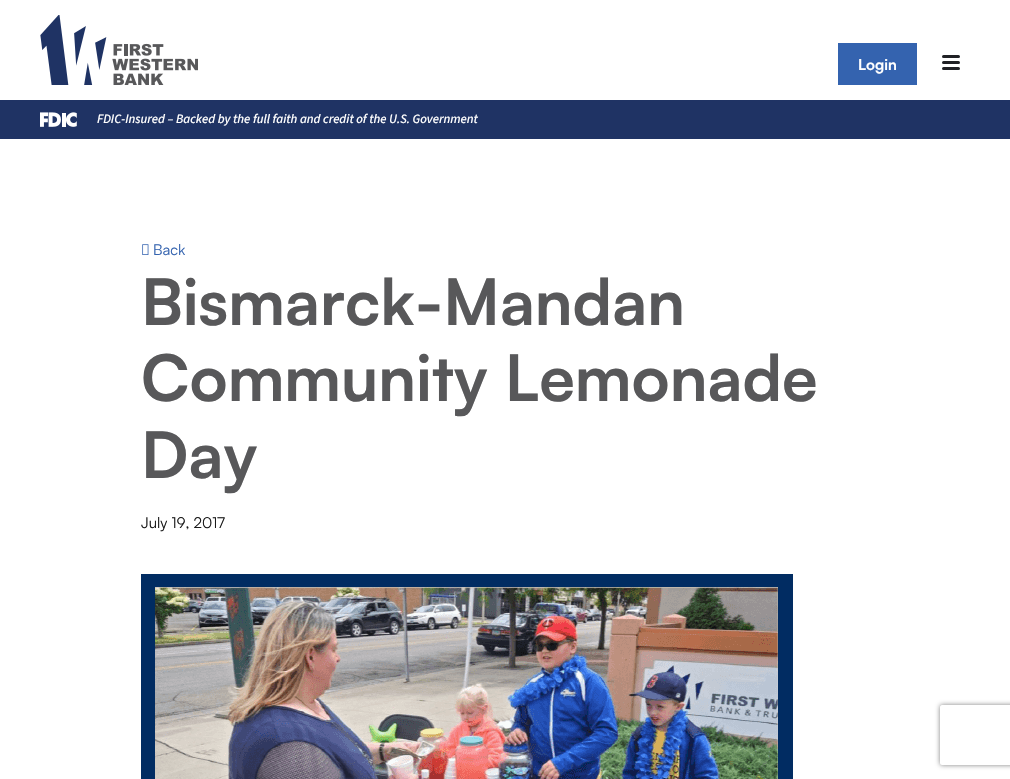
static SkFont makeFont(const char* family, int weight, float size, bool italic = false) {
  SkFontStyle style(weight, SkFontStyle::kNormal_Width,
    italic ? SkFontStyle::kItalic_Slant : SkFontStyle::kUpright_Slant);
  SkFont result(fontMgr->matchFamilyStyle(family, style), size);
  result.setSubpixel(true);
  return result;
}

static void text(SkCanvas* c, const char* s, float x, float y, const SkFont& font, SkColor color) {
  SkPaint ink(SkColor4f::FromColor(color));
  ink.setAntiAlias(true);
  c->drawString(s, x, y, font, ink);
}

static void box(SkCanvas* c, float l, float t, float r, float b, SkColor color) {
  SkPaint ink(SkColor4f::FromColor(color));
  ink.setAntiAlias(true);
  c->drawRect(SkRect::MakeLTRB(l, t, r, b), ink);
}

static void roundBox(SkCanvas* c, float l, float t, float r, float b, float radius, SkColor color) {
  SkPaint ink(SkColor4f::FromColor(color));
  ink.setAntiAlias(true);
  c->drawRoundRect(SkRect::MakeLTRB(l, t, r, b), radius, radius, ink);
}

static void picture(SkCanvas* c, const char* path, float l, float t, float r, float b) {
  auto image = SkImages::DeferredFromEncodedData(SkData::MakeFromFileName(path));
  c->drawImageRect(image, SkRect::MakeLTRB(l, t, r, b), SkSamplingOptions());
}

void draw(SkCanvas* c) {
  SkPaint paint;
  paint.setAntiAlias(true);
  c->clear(0xffffffff);
  picture(c, "img_01.png", 40, 15, 198, 85);
  box(c, 838, 43, 917, 85, 0xff3463af);
  SkFont face1 = makeFont("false", 700, 15);
  text(c, "Login", 858, 70, face1, 0xffffffff);
  roundBox(c, 942, 55, 960, 58, 1.5f, 0xff202125);
  roundBox(c, 942, 61, 960, 64, 1.5f, 0xff202125);
  roundBox(c, 942, 67, 960, 70, 1.5f, 0xff202125);
  box(c, 0, 100, 1010, 139, 0xff1f3364);
  picture(c, "img_02.png", 40, 112, 77, 127);
  SkFont face2 = makeFont("Source Sans 3", 500, 12.8f, true);
  text(c, "FDIC-Insured – Backed by the full faith and credit of the U.S. Government", 97, 123, face2, 0xffffffff);
  picture(c, "img_03.png", 142, 244, 149, 255);
  SkFont face3 = makeFont("false", 400, 15);
  text(c, "Back", 153, 255, face3, 0xff3463af);
  SkFont face4 = makeFont("false", 700, 64);
  text(c, "Bismarck-Mandan", 141, 325, face4, 0xff58585a);
  text(c, "Community Lemonade", 141, 401, face4, 0xff58585a);
  text(c, "Day", 141, 478, face4, 0xff58585a);
  text(c, "July 19, 2017", 141, 528, face3, 0xff1a1a1a);
  picture(c, "img_04.png", 141, 574, 793, 779);
  c->save();
  c->clipPath(SkPathBuilder(SkPathFillType::kEvenOdd).moveTo(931, 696).lineTo(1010, 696).lineTo(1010, 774).lineTo(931, 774).close().moveTo(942, 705).lineTo(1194, 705).cubicTo(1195, 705, 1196, 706, 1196, 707).lineTo(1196, 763).cubicTo(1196, 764, 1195, 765, 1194, 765).lineTo(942, 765).cubicTo(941, 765, 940, 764, 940, 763).lineTo(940, 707).cubicTo(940, 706, 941, 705, 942, 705).close().detach(), true);
  paint.setColor(0xff808080);
  paint.setMaskFilter(SkMaskFilter::MakeBlur(kNormal_SkBlurStyle, 2.5f));
  c->drawRoundRect(SkRect::MakeLTRB(940, 705, 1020, 765), 2, 2, paint);
  paint.setMaskFilter(nullptr);
  c->restore();
}
